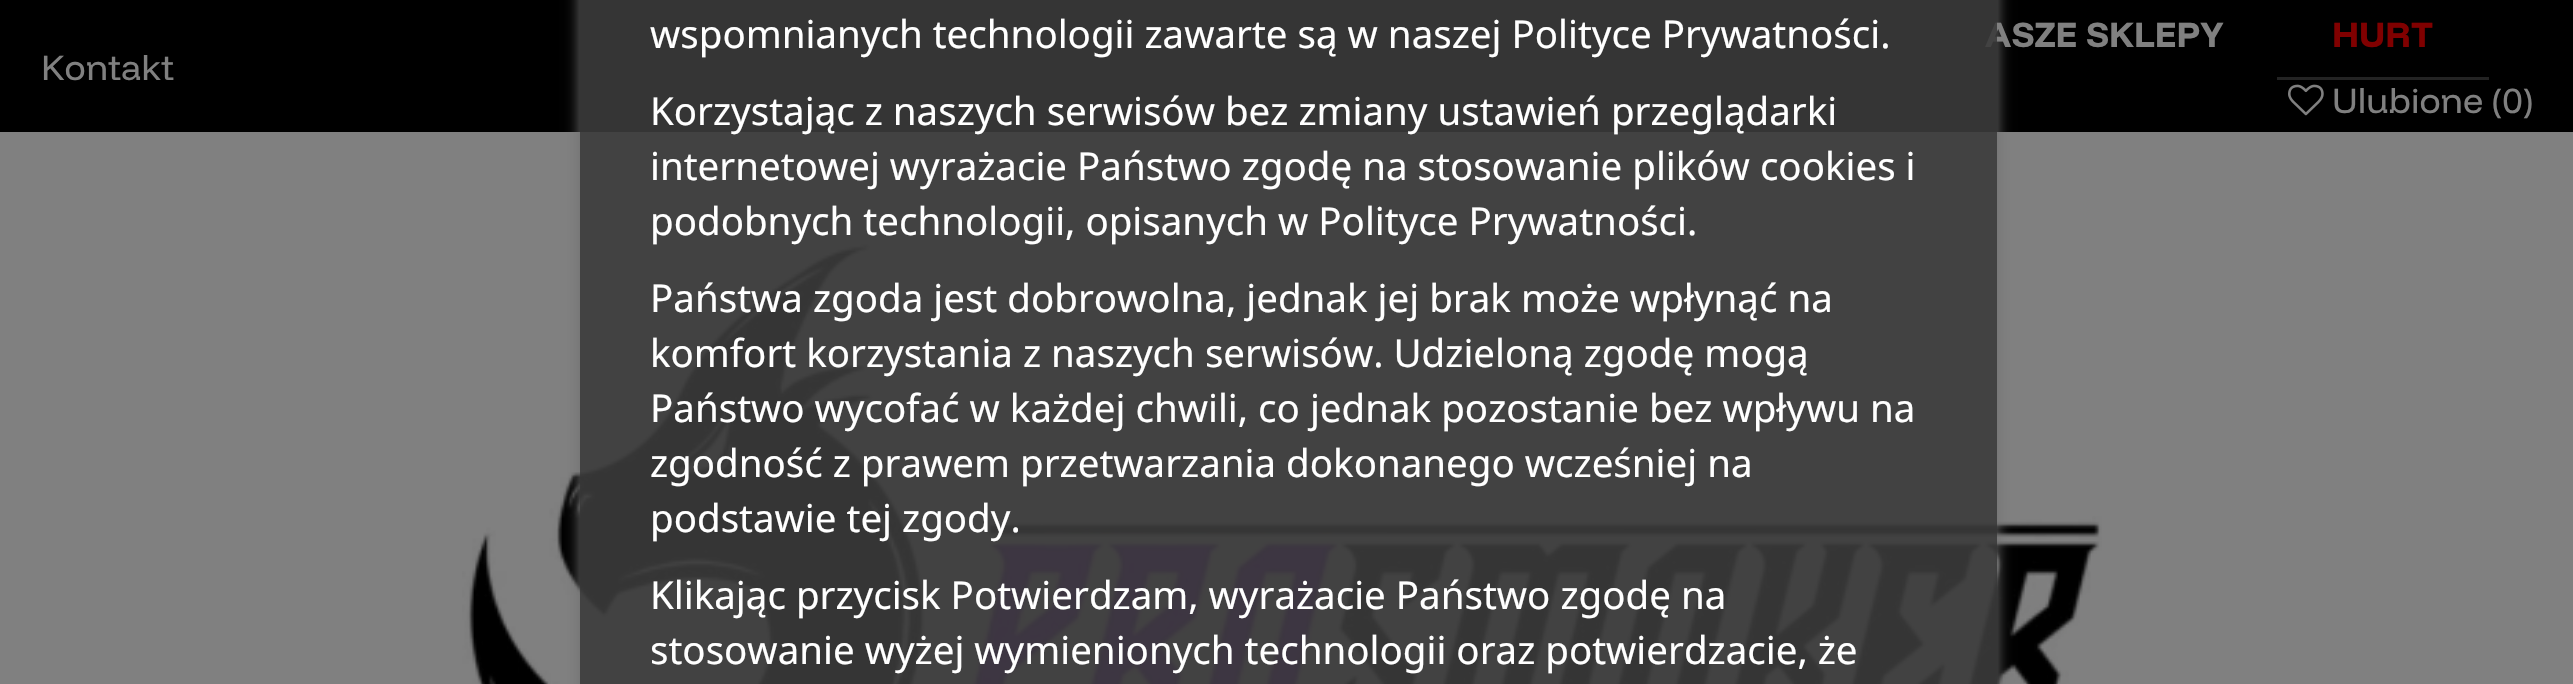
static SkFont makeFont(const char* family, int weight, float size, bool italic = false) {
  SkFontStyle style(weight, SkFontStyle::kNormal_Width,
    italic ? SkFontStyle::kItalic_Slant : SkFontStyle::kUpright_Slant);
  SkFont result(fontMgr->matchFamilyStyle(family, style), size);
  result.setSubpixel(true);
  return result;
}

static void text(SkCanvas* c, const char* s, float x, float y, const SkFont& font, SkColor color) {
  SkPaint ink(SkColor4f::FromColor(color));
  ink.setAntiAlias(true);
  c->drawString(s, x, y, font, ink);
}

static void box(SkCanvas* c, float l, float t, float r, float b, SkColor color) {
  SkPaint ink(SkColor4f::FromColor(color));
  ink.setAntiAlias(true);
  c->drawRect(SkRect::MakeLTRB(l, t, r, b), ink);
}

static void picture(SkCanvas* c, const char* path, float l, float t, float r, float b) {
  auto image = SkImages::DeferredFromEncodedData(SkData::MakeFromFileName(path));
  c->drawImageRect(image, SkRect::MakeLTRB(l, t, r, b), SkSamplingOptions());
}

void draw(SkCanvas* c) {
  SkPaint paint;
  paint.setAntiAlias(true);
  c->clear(0xff808080);
  box(c, 0, 0, 2573, 132, 0xff000000);
  picture(c, "img_02.png", 462, 242, 2102, 684);
  c->save();
  c->clipPath(SkPathBuilder(SkPathFillType::kEvenOdd).moveTo(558, 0).lineTo(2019, 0).lineTo(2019, 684).lineTo(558, 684).close().moveTo(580, -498).lineTo(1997, -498).lineTo(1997, 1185).lineTo(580, 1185).close().detach(), true);
  paint.setColor(0xff707070);
  paint.setMaskFilter(SkMaskFilter::MakeBlur(kNormal_SkBlurStyle, 7));
  c->drawRect(SkRect::MakeLTRB(580, -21, 1997, 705), paint);
  paint.setMaskFilter(nullptr);
  c->restore();
  SkFont face1 = makeFont("Funnel Display", 800, 35.75f);
  text(c, "ASZE SKLEPY", 1985, 47, face1, 0xff808080);
  box(c, 580, 0, 1997, 684, 0xe63b3b3b);
  SkFont face2 = makeFont("Noto Sans", 400, 38.5f);
  text(c, "wspomnianych technologii zawarte są w naszej Polityce Prywatności.", 650, 48, face2, 0xffffffff);
  text(c, "Korzystając z naszych serwisów bez zmiany ustawień przeglądarki", 650, 125, face2, 0xffffffff);
  text(c, "internetowej wyrażacie Państwo zgodę na stosowanie plików cookies i", 650, 180, face2, 0xffffffff);
  text(c, "podobnych technologii, opisanych w Polityce Prywatności.", 650, 235, face2, 0xffffffff);
  text(c, "Państwa zgoda jest dobrowolna, jednak jej brak może wpłynąć na", 650, 312, face2, 0xffffffff);
  text(c, "komfort korzystania z naszych serwisów. Udzieloną zgodę mogą", 650, 367, face2, 0xffffffff);
  text(c, "Państwo wycofać w każdej chwili, co jednak pozostanie bez wpływu na", 650, 422, face2, 0xffffffff);
  text(c, "zgodność z prawem przetwarzania dokonanego wcześniej na", 650, 477, face2, 0xffffffff);
  text(c, "podstawie tej zgody.", 650, 532, face2, 0xffffffff);
  text(c, "Klikając przycisk Potwierdzam, wyrażacie Państwo zgodę na", 650, 609, face2, 0xffffffff);
  text(c, "stosowanie wyżej wymienionych technologii oraz potwierdzacie, że", 650, 664, face2, 0xffffffff);
  SkFont face3 = makeFont("Funnel Display", 400, 35.75f);
  text(c, "Kontakt", 41, 80, face3, 0xff808080);
  box(c, 2277, 77, 2489, 80, 0xff232323);
  text(c, "HURT", 2332, 47, face1, 0xff800000);
  picture(c, "img_01.png", 2288, 84, 2324, 116);
  text(c, "Ulubione (0)", 2332, 113, face3, 0xff808080);
}
